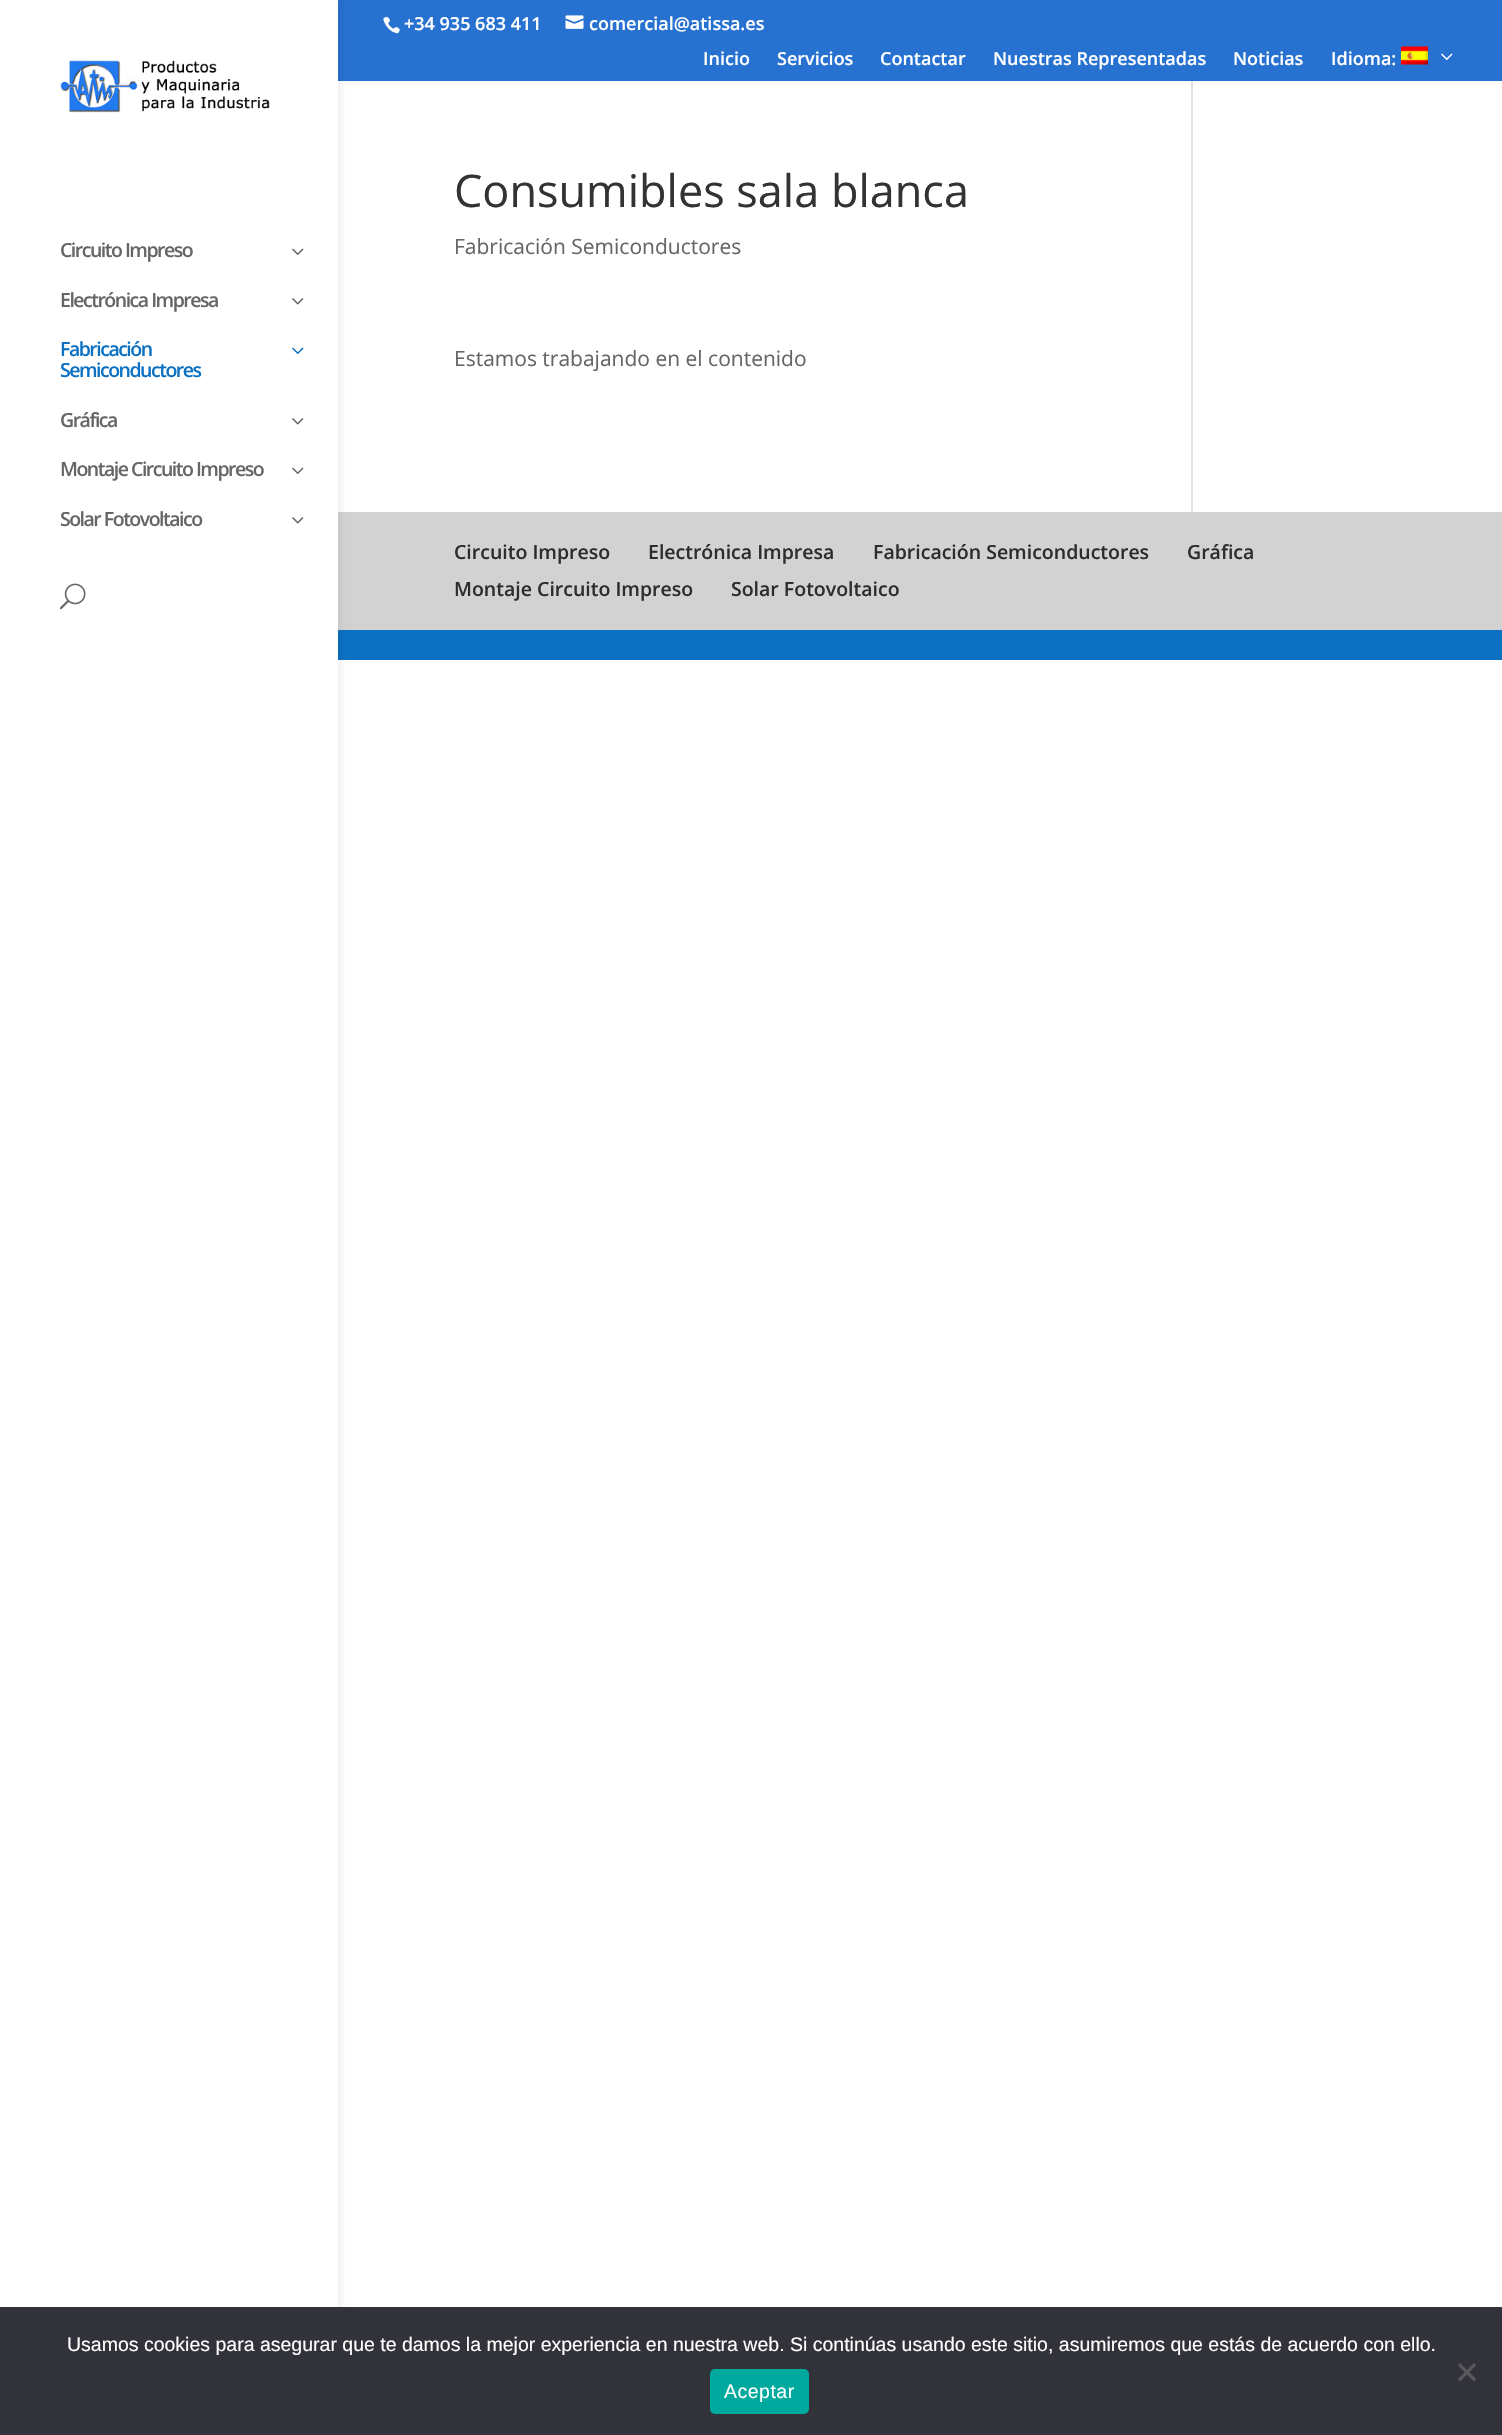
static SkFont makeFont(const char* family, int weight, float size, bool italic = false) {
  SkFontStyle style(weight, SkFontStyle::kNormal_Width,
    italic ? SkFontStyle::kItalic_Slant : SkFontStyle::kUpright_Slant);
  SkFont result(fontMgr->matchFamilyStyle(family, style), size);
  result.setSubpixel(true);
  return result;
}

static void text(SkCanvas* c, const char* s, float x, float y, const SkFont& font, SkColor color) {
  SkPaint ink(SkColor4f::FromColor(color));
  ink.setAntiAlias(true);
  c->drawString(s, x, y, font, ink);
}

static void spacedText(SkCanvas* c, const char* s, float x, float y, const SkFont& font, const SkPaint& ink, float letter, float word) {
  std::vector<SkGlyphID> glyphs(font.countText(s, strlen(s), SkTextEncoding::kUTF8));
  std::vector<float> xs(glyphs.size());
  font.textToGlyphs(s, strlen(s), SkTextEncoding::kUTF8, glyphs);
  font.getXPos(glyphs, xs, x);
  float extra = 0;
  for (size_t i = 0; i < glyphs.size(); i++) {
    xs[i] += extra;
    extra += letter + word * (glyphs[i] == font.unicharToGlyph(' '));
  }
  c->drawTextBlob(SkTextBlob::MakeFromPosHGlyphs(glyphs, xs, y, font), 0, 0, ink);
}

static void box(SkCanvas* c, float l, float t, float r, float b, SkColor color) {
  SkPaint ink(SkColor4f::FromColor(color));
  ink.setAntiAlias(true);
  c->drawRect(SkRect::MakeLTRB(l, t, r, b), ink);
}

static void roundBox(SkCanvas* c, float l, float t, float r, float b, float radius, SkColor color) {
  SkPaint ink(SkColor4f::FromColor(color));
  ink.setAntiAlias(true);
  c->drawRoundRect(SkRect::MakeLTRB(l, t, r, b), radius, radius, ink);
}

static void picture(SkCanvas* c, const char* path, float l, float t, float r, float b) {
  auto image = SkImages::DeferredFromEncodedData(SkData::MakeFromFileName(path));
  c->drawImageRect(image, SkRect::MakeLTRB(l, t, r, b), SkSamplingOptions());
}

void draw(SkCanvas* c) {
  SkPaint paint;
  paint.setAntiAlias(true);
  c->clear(0xffffffff);
  box(c, 338, 0, 1502, 81, 0xff2771d1);
  picture(c, "img_01.png", 383, 16, 400, 34);
  SkFont face1 = makeFont("Open Sans", 600, 18);
  text(c, "+34 935 683 411", 404, 30, face1, 0xffffffff);
  picture(c, "img_02.png", 565, 15, 584, 29);
  text(c, "comercial@atissa.es", 589, 30, face1, 0xffffffff);
  text(c, "Inicio", 703, 65, face1, 0xffffffff);
  text(c, "Servicios", 777, 65, face1, 0xffffffff);
  text(c, "Contactar", 880, 65, face1, 0xffffffff);
  text(c, "Nuestras Representadas", 993, 65, face1, 0xffffffff);
  text(c, "Noticias", 1233, 65, face1, 0xffffffff);
  text(c, "Idioma:", 1331, 65, face1, 0xffffffff);
  picture(c, "img_03.png", 1401, 46, 1428, 65);
  picture(c, "img_04.png", 1441, 53, 1453, 60);
  box(c, 338, 512, 1502, 630, 0xffd2d2d2);
  box(c, 338, 630, 1502, 660, 0xff0c71c3);
  paint.setColor(0x1a000000);
  paint.setMaskFilter(SkMaskFilter::MakeBlur(kNormal_SkBlurStyle, 5));
  c->drawRect(SkRect::MakeLTRB(0, 0, 338, 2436), paint);
  paint.setMaskFilter(nullptr);
  box(c, 0, 0, 338, 2307, 0xffffffff);
  picture(c, "img_05.png", 60, 60, 270, 113);
  SkFont face2 = makeFont("Open Sans", 600, 19.5f);
  paint.setColor(0xff666666);
  spacedText(c, "Circuito Impreso", 60, 257, face2, paint, -1.5f, 0);
  picture(c, "img_06.png", 292, 248, 304, 255);
  spacedText(c, "Electrónica Impresa", 60, 307, face2, paint, -1.5f, 0);
  picture(c, "img_07.png", 292, 298, 304, 305);
  paint.setColor(0xff0c71c3);
  spacedText(c, "Fabricación", 60, 356, face2, paint, -1.5f, 0);
  picture(c, "img_08.png", 292, 347, 304, 354);
  spacedText(c, "Semiconductores", 60, 377, face2, paint, -1.5f, 0);
  paint.setColor(0xff666666);
  spacedText(c, "Gráfica", 60, 427, face2, paint, -1.5f, 0);
  picture(c, "img_07.png", 292, 418, 304, 425);
  spacedText(c, "Montaje Circuito Impreso", 60, 476, face2, paint, -1.5f, 0);
  picture(c, "img_06.png", 292, 467, 304, 474);
  spacedText(c, "Solar Fotovoltaico", 60, 526, face2, paint, -1.5f, 0);
  picture(c, "img_07.png", 292, 517, 304, 524);
  picture(c, "img_09.png", 59, 583, 86, 610);
  SkFont face3 = makeFont("Open Sans", 400, 45);
  text(c, "Consumibles sala blanca", 454, 207, face3, 0xff333333);
  SkFont face4 = makeFont("Open Sans", 400, 21);
  text(c, "Fabricación Semiconductores", 454, 254, face4, 0xff666666);
  text(c, "Estamos trabajando en el contenido", 454, 366, face4, 0xff666666);
  box(c, 1191, 81, 1193, 512, 0xffe2e2e2);
  text(c, "Circuito Impreso", 454, 559, face2, 0xff2d2d2d);
  text(c, "Electrónica Impresa", 648, 559, face2, 0xff2d2d2d);
  text(c, "Fabricación Semiconductores", 873, 559, face2, 0xff2d2d2d);
  text(c, "Gráfica", 1187, 559, face2, 0xff2d2d2d);
  text(c, "Montaje Circuito Impreso", 454, 596, face2, 0xff2d2d2d);
  text(c, "Solar Fotovoltaico", 731, 596, face2, 0xff2d2d2d);
  box(c, 0, 2307, 1502, 2435, 0xff32323a);
  SkFont face5 = makeFont("Liberation Sans", 400, 19.5f);
  text(c, "Usamos cookies para asegurar que te damos la mejor experiencia en nuestra web. Si continúas usando este sitio, asumiremos que estás de acuerdo con ello.", 67, 2351, face5, 0xffffffff);
  paint.setColor(0xff59595d);
  c->drawPath(SkPathBuilder().moveTo(1474, 2363).lineTo(1476, 2365.5f).lineTo(1460, 2381.5f).lineTo(1458, 2379).close().detach(), paint);
  c->drawPath(SkPathBuilder().moveTo(1458, 2365.5f).lineTo(1460, 2363).lineTo(1476, 2379).lineTo(1474, 2381.5f).close().detach(), paint);
  roundBox(c, 710, 2369, 809, 2414, 5, 0xff00a99d);
  paint.setColor(0xffffffff);
  spacedText(c, "Aceptar", 724, 2398, face5, paint, 0.5f, 0);
}
